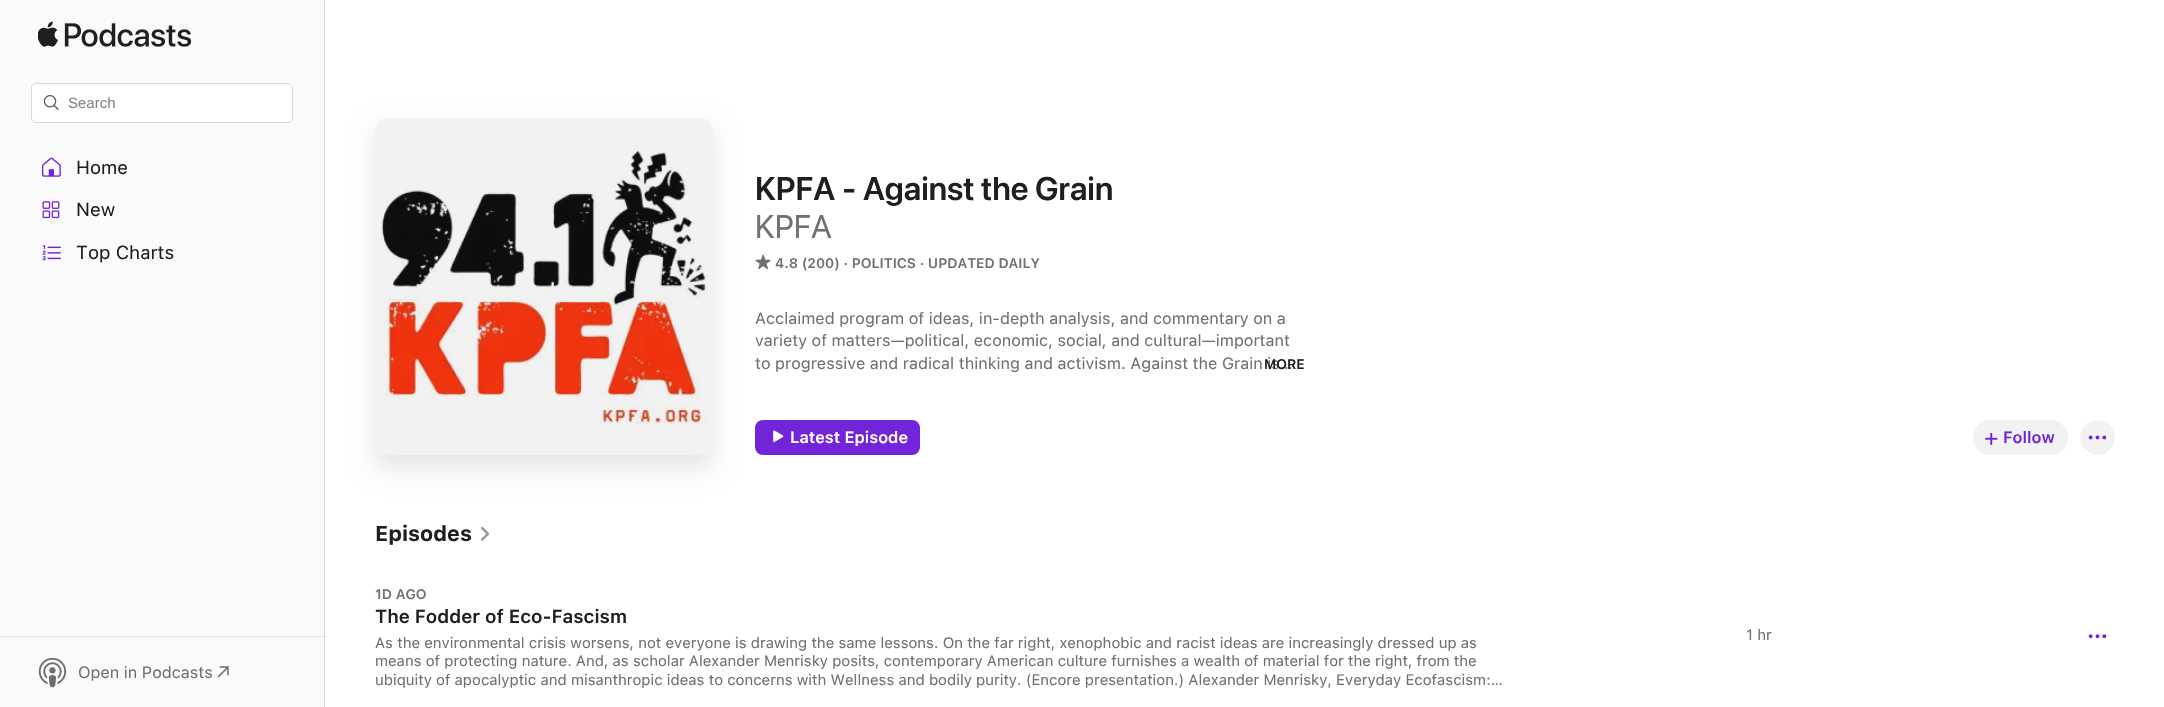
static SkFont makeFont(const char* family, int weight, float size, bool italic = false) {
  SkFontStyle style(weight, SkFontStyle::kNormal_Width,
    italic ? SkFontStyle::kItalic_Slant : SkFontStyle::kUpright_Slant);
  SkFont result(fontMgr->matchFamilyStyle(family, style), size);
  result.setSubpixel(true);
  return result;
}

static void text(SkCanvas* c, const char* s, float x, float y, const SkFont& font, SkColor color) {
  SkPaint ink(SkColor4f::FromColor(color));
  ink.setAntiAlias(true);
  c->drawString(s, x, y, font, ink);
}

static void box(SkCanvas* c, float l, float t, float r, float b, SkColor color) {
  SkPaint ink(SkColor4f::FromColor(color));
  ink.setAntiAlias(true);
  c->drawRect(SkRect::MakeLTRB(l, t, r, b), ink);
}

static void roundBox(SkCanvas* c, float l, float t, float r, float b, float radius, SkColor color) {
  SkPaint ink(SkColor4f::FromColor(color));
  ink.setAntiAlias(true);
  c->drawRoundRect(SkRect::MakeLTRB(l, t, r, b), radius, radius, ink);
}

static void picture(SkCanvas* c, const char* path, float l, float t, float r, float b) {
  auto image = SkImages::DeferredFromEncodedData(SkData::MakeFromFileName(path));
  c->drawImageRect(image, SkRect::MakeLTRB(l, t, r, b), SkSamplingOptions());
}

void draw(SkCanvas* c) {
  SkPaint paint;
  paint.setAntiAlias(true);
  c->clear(0xffffffff);
  box(c, 0, 0, 324, 707, 0xfffafafa);
  box(c, 0, 636, 325, 637, 0xffe1e1e1);
  box(c, 324, 0, 325, 707, 0xffd5d5d5);
  box(c, 324, 636, 325, 637, 0xffc0c0c0);
  picture(c, "img_01.png", 38, 21, 191, 47);
  paint.setColor(0xffffffff);
  c->drawRoundRect(SkRect::MakeLTRB(31.5f, 83.5f, 292.5f, 122.5f), 4.5f, 4.5f, paint);
  paint.setStyle(SkPaint::kStroke_Style);
  paint.setStrokeWidth(1);
  paint.setColor(0xffd9d9d9);
  c->drawRoundRect(SkRect::MakeLTRB(31.5f, 83.5f, 292.5f, 122.5f), 4.5f, 4.5f, paint);
  picture(c, "img_02.png", 44, 95, 59, 110);
  SkFont face1 = makeFont("Liberation Sans", 400, 15);
  text(c, "Search", 68, 108, face1, 0xff858585);
  picture(c, "img_03.png", 41, 157, 61, 177);
  SkFont face2 = makeFont("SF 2", 400, 18.75f);
  text(c, "Home", 76, 174, face2, 0xff1f1f1f);
  picture(c, "img_04.png", 42, 201, 60, 219);
  text(c, "New", 76, 216, face2, 0xff1f1f1f);
  picture(c, "img_05.png", 42, 245, 61, 261);
  text(c, "Top Charts", 76, 259, face2, 0xff1f1f1f);
  picture(c, "img_06.png", 38, 658, 67, 688);
  SkFont face3 = makeFont("SF 2", 400, 16.25f);
  text(c, "Open in Podcasts", 78, 678, face3, 0xff707070);
  picture(c, "img_07.png", 218, 666, 229, 678);
  c->save();
  c->clipPath(SkPathBuilder(SkPathFillType::kEvenOdd).moveTo(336, 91).lineTo(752, 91).lineTo(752, 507).lineTo(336, 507).close().moveTo(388, 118).lineTo(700, 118).cubicTo(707, 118, 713, 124, 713, 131).lineTo(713, 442).cubicTo(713, 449, 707, 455, 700, 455).lineTo(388, 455).cubicTo(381, 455, 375, 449, 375, 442).lineTo(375, 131).cubicTo(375, 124, 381, 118, 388, 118).close().detach(), true);
  paint.setStyle(SkPaint::kFill_Style);
  paint.setColor(0x1a000000);
  paint.setMaskFilter(SkMaskFilter::MakeBlur(kNormal_SkBlurStyle, 12.5f));
  c->drawRoundRect(SkRect::MakeLTRB(375, 130, 713, 468), 13, 13, paint);
  paint.setMaskFilter(nullptr);
  c->restore();
  picture(c, "img_08.png", 381, 149, 708, 425);
  paint.setColor(0x1a808080);
  c->drawPath(SkPathBuilder().moveTo(388, 118).lineTo(700, 118).cubicTo(707, 118, 713, 124, 713, 131).lineTo(713, 442).cubicTo(713, 449, 707, 455, 700, 455).lineTo(388, 455).cubicTo(381, 455, 375, 449, 375, 442).lineTo(375, 131).cubicTo(375, 124, 381, 118, 388, 118).close().detach(), paint);
  SkFont face4 = makeFont("SF 2", 600, 32.5f);
  text(c, "KPFA - Against the Grain", 755, 200, face4, 0xff1f1f1f);
  SkFont face5 = makeFont("SF", 400, 32.5f);
  text(c, "KPFA", 755, 238, face5, 0xff707070);
  picture(c, "img_09.png", 755, 254, 771, 269);
  SkFont face6 = makeFont("SF", 600, 13.75f);
  text(c, "4.8 (200) · POLITICS · UPDATED DAILY", 775, 268, face6, 0xff707070);
  text(c, "Acclaimed program of ideas, in-depth analysis, and commentary on a", 755, 324, face3, 0xff707070);
  text(c, "variety of matters—political, economic, social, and cultural—important", 755, 346, face3, 0xff707070);
  text(c, "to progressive and radical thinking and activism. Against the Grain is…", 755, 369, face3, 0xff707070);
  text(c, "MORE", 1264, 369, face6, 0xff1f1f1f);
  roundBox(c, 755, 420, 920, 455, 8, 0xff7224d8);
  picture(c, "img_10.png", 773, 430, 784, 442);
  SkFont face7 = makeFont("SF", 600, 16.25f);
  text(c, "Latest Episode", 790, 443, face7, 0xffffffff);
  roundBox(c, 1973, 420, 2068, 455, 17.5f, 0xfff2f2f2);
  picture(c, "img_11.png", 1985, 433, 1998, 445);
  text(c, "Follow", 2003, 443, face7, 0xff7224d8);
  picture(c, "img_12.png", 2080, 420, 2115, 455);
  SkFont face8 = makeFont("SF", 700, 21.25f);
  text(c, "Episodes", 375, 541, face8, 0xff1f1f1f);
  picture(c, "img_13.png", 480, 526, 490, 541);
  text(c, "1D AGO", 375, 599, face6, 0xff707070);
  SkFont face9 = makeFont("SF", 600, 18.75f);
  text(c, "The Fodder of Eco-Fascism", 375, 623, face9, 0xff1f1f1f);
  SkFont face10 = makeFont("SF 2", 400, 15);
  text(c, "As the environmental crisis worsens, not everyone is drawing the same lessons. On the far right, xenophobic and racist ideas are increasingly dressed up as", 375, 648, face10, 0xff707070);
  text(c, "means of protecting nature. And, as scholar Alexander Menrisky posits, contemporary American culture furnishes a wealth of material for the right, from the", 375, 666, face10, 0xff707070);
  text(c, "ubiquity of apocalyptic and misanthropic ideas to concerns with Wellness and bodily purity. (Encore presentation.) Alexander Menrisky, Everyday Ecofascism:…", 375, 685, face10, 0xff707070);
  text(c, "1 hr", 1746, 640, face10, 0xff707070);
  picture(c, "img_14.png", 2088, 634, 2107, 639);
}
